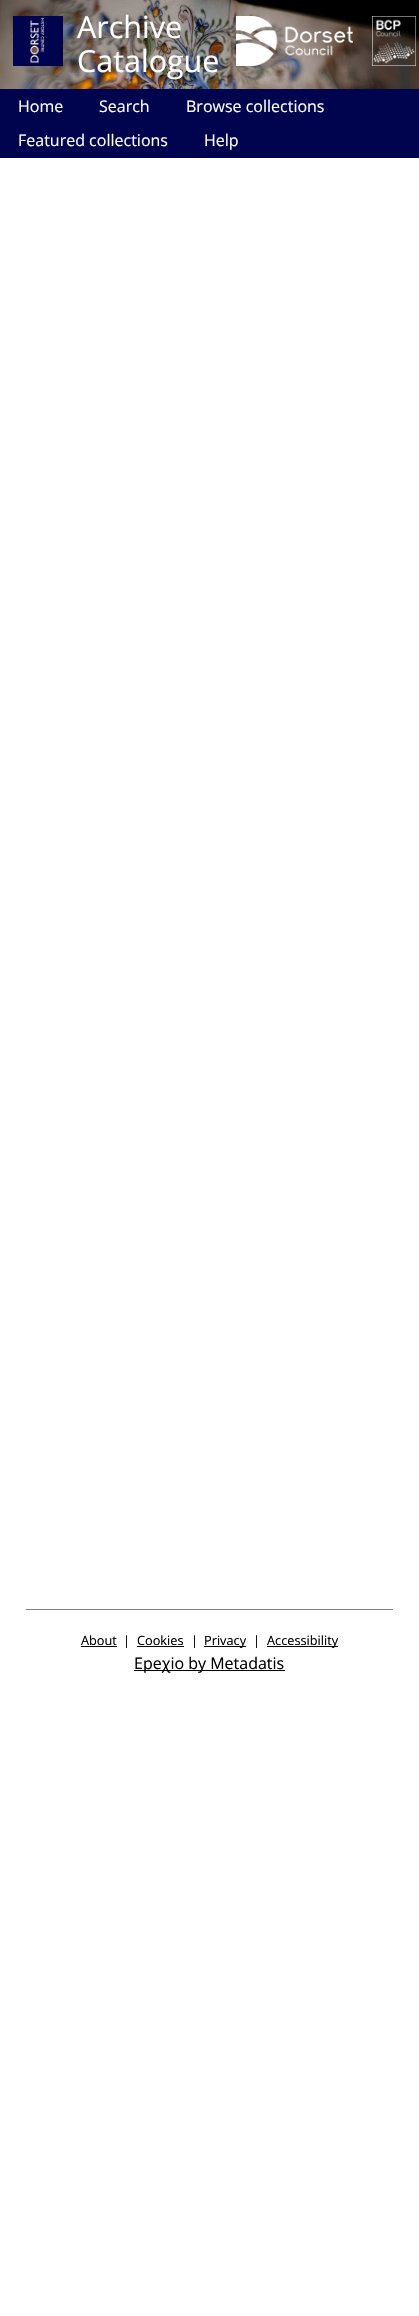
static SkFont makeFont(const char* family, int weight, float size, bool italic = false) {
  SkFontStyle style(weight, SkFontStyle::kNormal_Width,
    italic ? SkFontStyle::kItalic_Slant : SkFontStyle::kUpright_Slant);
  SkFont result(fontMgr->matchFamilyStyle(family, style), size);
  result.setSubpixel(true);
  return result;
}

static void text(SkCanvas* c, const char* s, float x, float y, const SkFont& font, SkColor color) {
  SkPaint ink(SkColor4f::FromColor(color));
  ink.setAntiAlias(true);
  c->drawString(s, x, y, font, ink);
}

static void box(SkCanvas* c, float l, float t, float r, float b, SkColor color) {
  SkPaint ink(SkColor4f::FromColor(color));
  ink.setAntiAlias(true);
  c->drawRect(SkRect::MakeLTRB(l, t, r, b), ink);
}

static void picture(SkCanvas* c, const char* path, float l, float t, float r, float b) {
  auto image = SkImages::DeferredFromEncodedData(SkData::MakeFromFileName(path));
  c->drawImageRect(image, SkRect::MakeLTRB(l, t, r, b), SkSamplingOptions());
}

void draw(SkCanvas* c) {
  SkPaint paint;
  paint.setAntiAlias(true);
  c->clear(0xffffffff);
  picture(c, "img_01.png", 0, 0, 419, 89);
  picture(c, "img_02.png", 13, 16, 63, 66);
  SkFont face1 = makeFont("Open Sans", 400, 30.5f);
  text(c, "Archive", 77, 38, face1, 0xffffffff);
  text(c, "Catalogue", 77, 72, face1, 0xffffffff);
  picture(c, "img_03.png", 236, 16, 353, 66);
  picture(c, "img_04.png", 372, 16, 416, 66);
  box(c, 0, 89, 419, 158, 0xff00044e);
  SkFont face2 = makeFont("Open Sans", 400, 16);
  text(c, "Home", 18, 112, face2, 0xffffffff);
  text(c, "Search", 99, 112, face2, 0xffffffff);
  text(c, "Browse collections", 186, 112, face2, 0xffffffff);
  text(c, "Featured collections", 18, 146, face2, 0xffffffff);
  text(c, "Help", 204, 146, face2, 0xffffffff);
  box(c, 26, 1609, 393, 1610, 0xff808080);
  SkFont face3 = makeFont("Open Sans", 400, 12.75f);
  text(c, "About", 81, 1645, face3, 0xff000000);
  box(c, 81, 1646, 117, 1647, 0xff000000);
  text(c, "|", 123, 1645, face3, 0xff000000);
  text(c, "Cookies", 137, 1645, face3, 0xff000000);
  box(c, 137, 1646, 184, 1647, 0xff000000);
  text(c, "|", 191, 1645, face3, 0xff000000);
  box(c, 204, 1646, 246, 1647, 0xff000000);
  text(c, "Privacy", 204, 1645, face3, 0xff000000);
  text(c, "|", 253, 1645, face3, 0xff000000);
  box(c, 267, 1646, 338, 1647, 0xff000000);
  text(c, "Accessibility", 267, 1645, face3, 0xff000000);
  box(c, 134, 1670, 285, 1671, 0xff000000);
  text(c, "Epeχio by Metadatis", 134, 1669, face2, 0xff000000);
}
